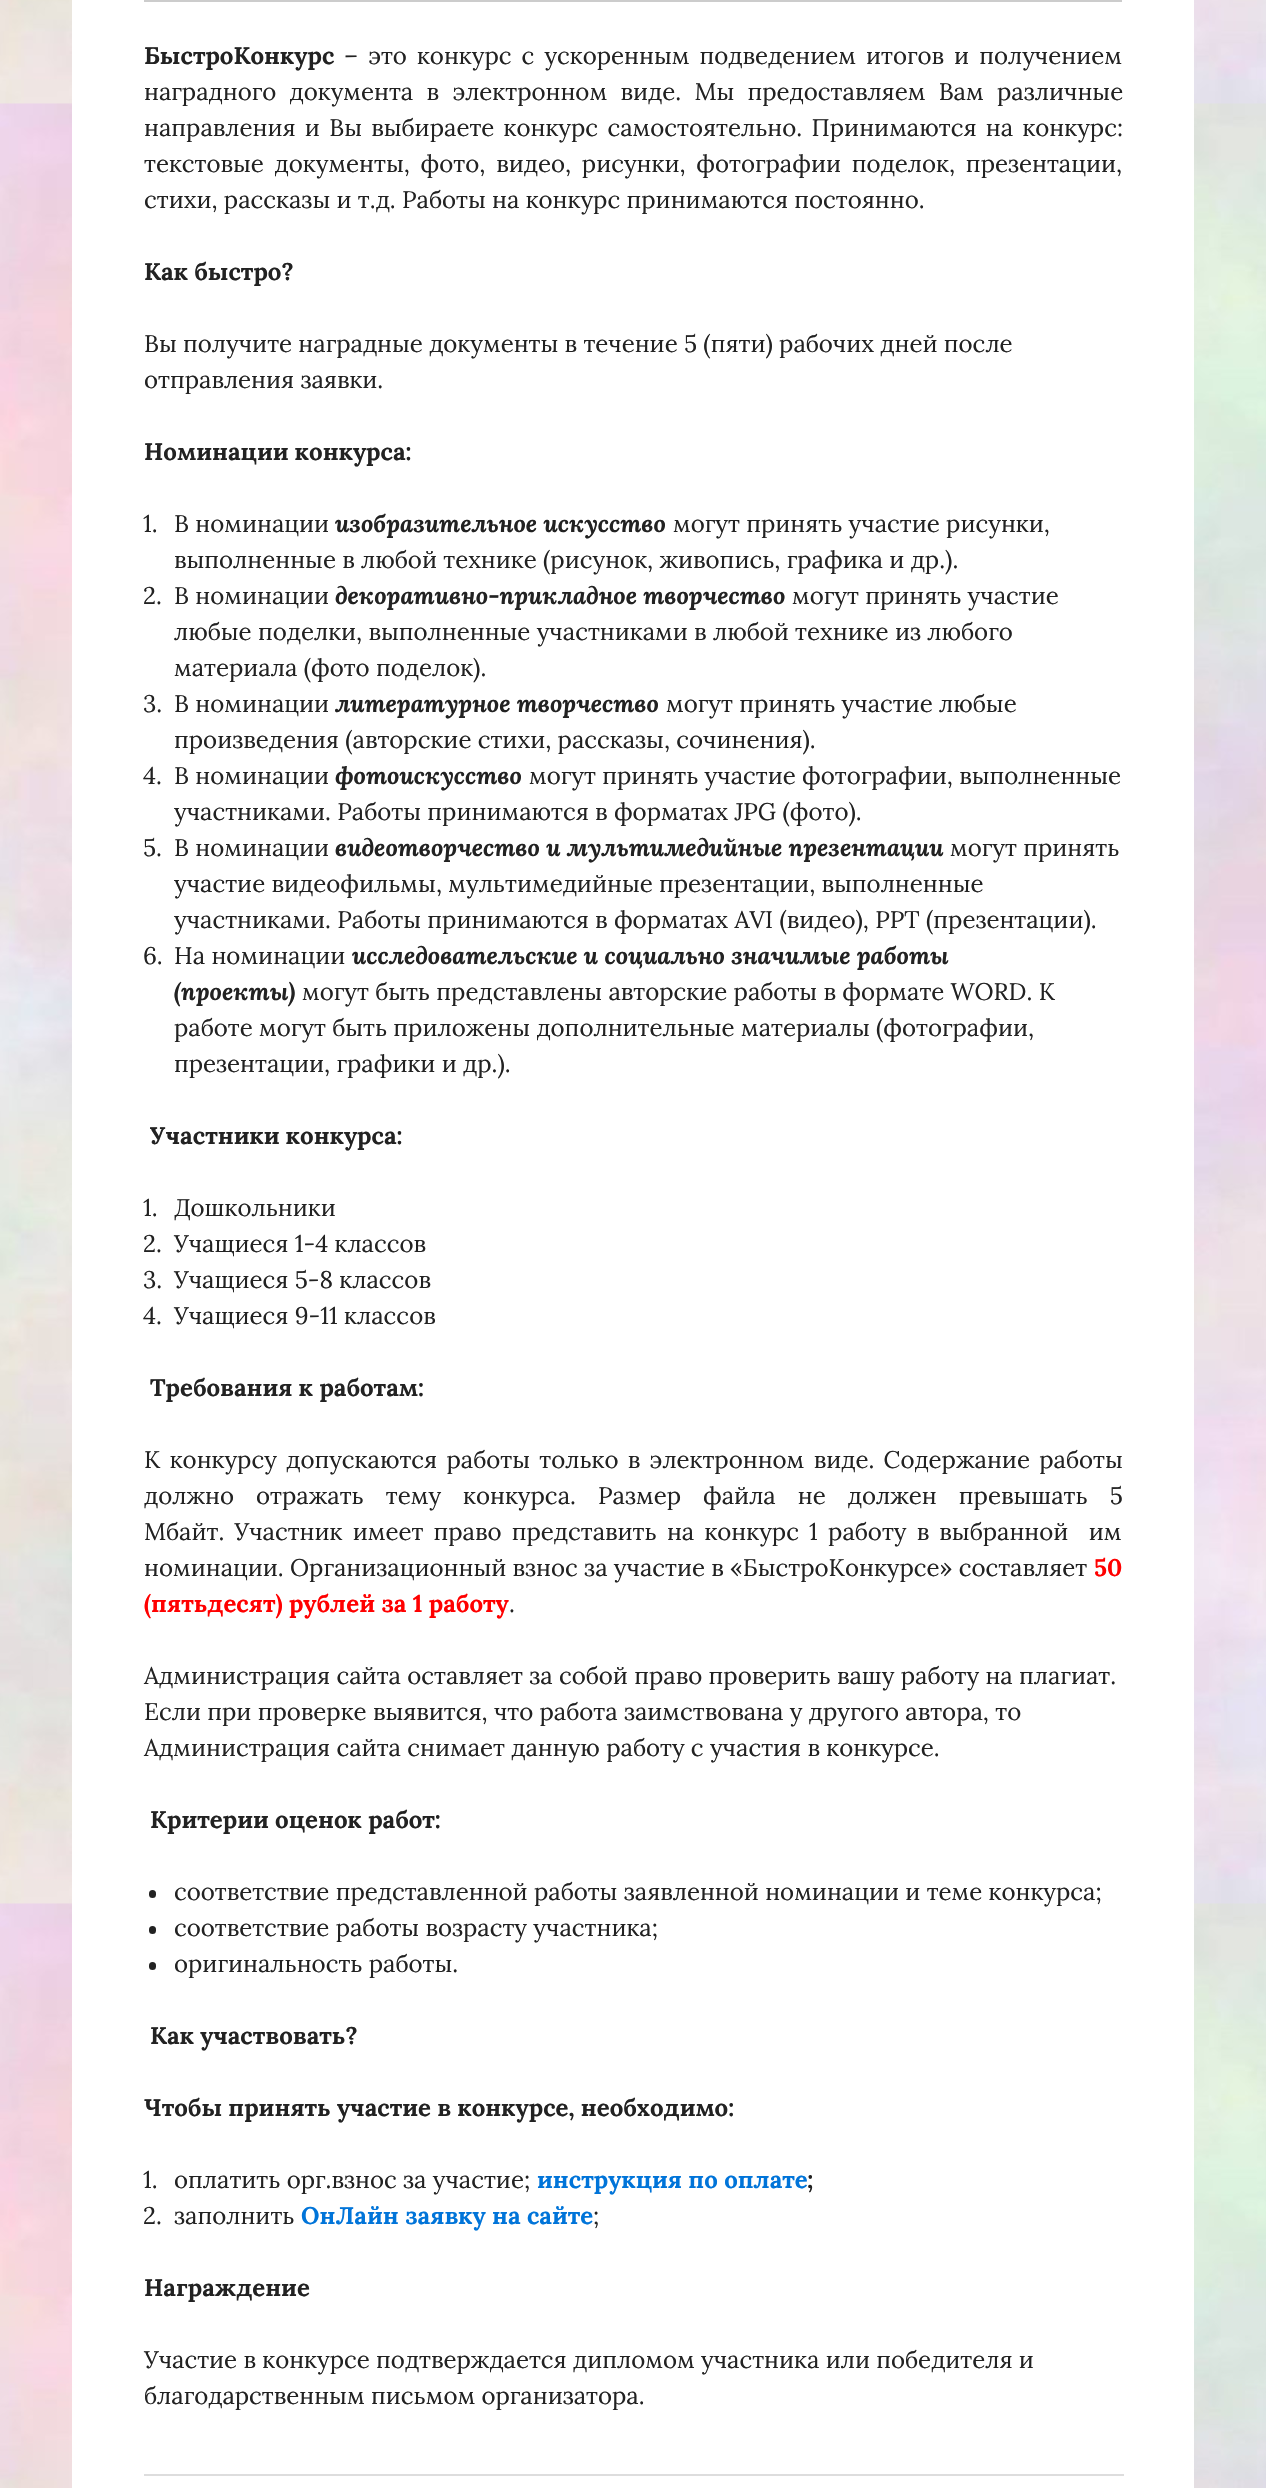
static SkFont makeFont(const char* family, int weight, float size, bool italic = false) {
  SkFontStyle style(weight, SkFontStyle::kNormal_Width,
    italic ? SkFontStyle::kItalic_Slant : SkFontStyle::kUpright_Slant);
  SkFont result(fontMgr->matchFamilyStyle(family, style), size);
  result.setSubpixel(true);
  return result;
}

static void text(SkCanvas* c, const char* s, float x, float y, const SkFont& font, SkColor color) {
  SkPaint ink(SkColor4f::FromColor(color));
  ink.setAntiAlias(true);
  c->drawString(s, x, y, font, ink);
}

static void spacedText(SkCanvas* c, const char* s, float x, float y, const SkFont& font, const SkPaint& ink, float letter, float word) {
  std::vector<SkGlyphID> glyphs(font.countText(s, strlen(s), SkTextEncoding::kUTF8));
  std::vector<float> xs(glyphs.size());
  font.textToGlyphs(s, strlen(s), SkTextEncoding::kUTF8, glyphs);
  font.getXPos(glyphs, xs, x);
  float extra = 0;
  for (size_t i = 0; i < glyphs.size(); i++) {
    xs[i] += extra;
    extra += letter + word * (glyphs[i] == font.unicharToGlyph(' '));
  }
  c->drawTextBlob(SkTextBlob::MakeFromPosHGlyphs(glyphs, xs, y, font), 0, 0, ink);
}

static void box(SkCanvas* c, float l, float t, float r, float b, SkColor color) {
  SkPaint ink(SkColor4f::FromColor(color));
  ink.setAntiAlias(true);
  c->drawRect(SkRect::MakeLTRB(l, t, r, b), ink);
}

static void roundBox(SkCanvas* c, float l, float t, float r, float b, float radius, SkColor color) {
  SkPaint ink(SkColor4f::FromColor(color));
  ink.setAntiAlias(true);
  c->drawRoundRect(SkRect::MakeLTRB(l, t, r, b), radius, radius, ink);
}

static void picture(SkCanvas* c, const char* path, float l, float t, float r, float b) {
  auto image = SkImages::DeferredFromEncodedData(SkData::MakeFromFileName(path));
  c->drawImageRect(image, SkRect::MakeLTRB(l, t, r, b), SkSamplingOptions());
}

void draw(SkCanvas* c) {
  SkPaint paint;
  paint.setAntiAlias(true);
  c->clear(0xffffffff);
  picture(c, "img_01.png", 0, 0, 1266, 2488);
  box(c, 72, 0, 1194, 2488, 0xffffffff);
  box(c, 144, 0, 1122, 2, 0xffcccccc);
  SkFont face1 = makeFont("Lora", 700, 24);
  text(c, "БыcтроКонкурс", 144, 64, face1, 0xff222222);
  SkFont face2 = makeFont("Lora", 400, 24);
  paint.setColor(0xff222222);
  spacedText(c, "– это конкурс с ускоренным подведением итогов и получением", 344, 64, face2, paint, 0, 3.75f);
  spacedText(c, "наградного документа в электронном виде. Мы предоставляем Вам различные", 144, 100, face2, paint, 0, 7);
  spacedText(c, "направления и Вы выбираете конкурс самостоятельно. Принимаются на конкурс:", 144, 136, face2, paint, 0, 3);
  spacedText(c, "текстовые документы, фото, видео, рисунки, фотографии поделок, презентации,", 144, 172, face2, paint, 0, 4.5f);
  text(c, "стихи, рассказы и т.д. Работы на конкурс принимаются постоянно.", 144, 208, face2, 0xff222222);
  text(c, "Как быстро?", 144, 280, face1, 0xff222222);
  text(c, "Вы получите наградные документы в течение 5 (пяти) рабочих дней после", 144, 352, face2, 0xff222222);
  text(c, "отправления заявки.", 144, 388, face2, 0xff222222);
  text(c, "Номинации конкурса:", 144, 460, face1, 0xff222222);
  text(c, "1.", 143, 532, face2, 0xff222222);
  text(c, "В номинации", 174, 532, face2, 0xff222222);
  SkFont face3 = makeFont("Lora", 700, 24, true);
  text(c, "изобразительное искусство", 335, 532, face3, 0xff222222);
  text(c, "могут принять участие рисунки,", 673, 532, face2, 0xff222222);
  text(c, "выполненные в любой технике (рисунок, живопись, графика и др.).", 174, 568, face2, 0xff222222);
  text(c, "2.", 143, 604, face2, 0xff222222);
  text(c, "В номинации", 174, 604, face2, 0xff222222);
  text(c, "декоративно-прикладное творчество", 335, 604, face3, 0xff222222);
  text(c, "могут принять участие", 792, 604, face2, 0xff222222);
  text(c, "любые поделки, выполненные участниками в любой технике из любого", 174, 640, face2, 0xff222222);
  text(c, "материала (фото поделок).", 174, 676, face2, 0xff222222);
  text(c, "3.", 143, 712, face2, 0xff222222);
  text(c, "В номинации", 174, 712, face2, 0xff222222);
  text(c, "литературное творчество", 335, 712, face3, 0xff222222);
  text(c, "могут принять участие любые", 666, 712, face2, 0xff222222);
  text(c, "произведения (авторские стихи, рассказы, сочинения).", 174, 748, face2, 0xff222222);
  text(c, "4.", 143, 784, face2, 0xff222222);
  text(c, "В номинации", 174, 784, face2, 0xff222222);
  text(c, "фотоискусство", 335, 784, face3, 0xff222222);
  text(c, "могут принять участие фотографии, выполненные", 529, 784, face2, 0xff222222);
  text(c, "участниками. Работы принимаются в форматах JPG (фото).", 174, 820, face2, 0xff222222);
  text(c, "5.", 143, 856, face2, 0xff222222);
  text(c, "В номинации", 174, 856, face2, 0xff222222);
  text(c, "видеотворчество и мультимедийные презентации", 335, 856, face3, 0xff222222);
  text(c, "могут принять", 950, 856, face2, 0xff222222);
  text(c, "участие видеофильмы, мультимедийные презентации, выполненные", 174, 892, face2, 0xff222222);
  text(c, "участниками. Работы принимаются в форматах AVI (видео), PPT (презентации).", 174, 928, face2, 0xff222222);
  text(c, "6.", 143, 964, face2, 0xff222222);
  text(c, "На номинации", 174, 964, face2, 0xff222222);
  text(c, "исследовательские и социально значимые работы", 352, 964, face3, 0xff222222);
  text(c, "(проекты)", 174, 1000, face3, 0xff222222);
  text(c, "могут быть представлены авторские работы в формате WORD. К", 302, 1000, face2, 0xff222222);
  text(c, "работе могут быть приложены дополнительные материалы (фотографии,", 174, 1036, face2, 0xff222222);
  text(c, "презентации, графики и др.).", 174, 1072, face2, 0xff222222);
  text(c, "Участники конкурса:", 150, 1144, face1, 0xff222222);
  text(c, "1.", 143, 1216, face2, 0xff222222);
  text(c, "Дошкольники", 174, 1216, face2, 0xff222222);
  text(c, "2.", 143, 1252, face2, 0xff222222);
  text(c, "Учащиеся 1-4 классов", 174, 1252, face2, 0xff222222);
  text(c, "3.", 143, 1288, face2, 0xff222222);
  text(c, "Учащиеся 5-8 классов", 174, 1288, face2, 0xff222222);
  text(c, "4.", 143, 1324, face2, 0xff222222);
  text(c, "Учащиеся 9-11 классов", 174, 1324, face2, 0xff222222);
  text(c, "Требования к работам:", 150, 1396, face1, 0xff222222);
  spacedText(c, "К конкурсу допускаются работы только в электронном виде. Содержание работы", 144, 1468, face2, paint, 0, 3);
  spacedText(c, "должно отражать тему конкурса. Размер файла не должен превышать 5", 144, 1504, face2, paint, 0, 15.75f);
  spacedText(c, "Мбайт. Участник имеет право представить на конкурс 1 работу в выбранной  им", 144, 1540, face2, paint, 0, 3.9f);
  text(c, "номинации. Организационный взнос за участие в «БыстроКонкурсе» составляет", 144, 1576, face2, 0xff222222);
  text(c, "50", 1094, 1576, face1, 0xffff0000);
  text(c, "(пятьдесят) рублей за 1 работу", 144, 1612, face1, 0xffff0000);
  text(c, ".", 509, 1612, face2, 0xff222222);
  text(c, "Администрация сайта оставляет за собой право проверить вашу работу на плагиат.", 144, 1684, face2, 0xff222222);
  text(c, "Если при проверке выявится, что работа заимствована у другого автора, то", 144, 1720, face2, 0xff222222);
  text(c, "Администрация сайта снимает данную работу с участия в конкурсе.", 144, 1756, face2, 0xff222222);
  text(c, "Критерии оценок работ:", 150, 1828, face1, 0xff222222);
  roundBox(c, 149, 1890, 156, 1898, 3.5f, 0xff222222);
  text(c, "соответствие представленной работы заявленной номинации и теме конкурса;", 174, 1900, face2, 0xff222222);
  roundBox(c, 149, 1926, 156, 1934, 3.5f, 0xff222222);
  text(c, "соответствие работы возрасту участника;", 174, 1936, face2, 0xff222222);
  roundBox(c, 149, 1962, 156, 1970, 3.5f, 0xff222222);
  text(c, "оригинальность работы.", 174, 1972, face2, 0xff222222);
  text(c, "Как участвовать?", 150, 2044, face1, 0xff222222);
  text(c, "Чтобы принять участие в конкурсе, необходимо:", 144, 2116, face1, 0xff222222);
  text(c, "1.", 143, 2188, face2, 0xff222222);
  text(c, "оплатить орг.взнос за участие;", 174, 2188, face2, 0xff222222);
  text(c, "инструкция по оплате", 537, 2188, face1, 0xff0074d9);
  text(c, ";", 807, 2188, face1, 0xff222222);
  text(c, "2.", 143, 2224, face2, 0xff222222);
  text(c, "заполнить", 174, 2224, face2, 0xff222222);
  text(c, "ОнЛайн заявку на сайте", 301, 2224, face1, 0xff0074d9);
  text(c, ";", 593, 2224, face2, 0xff222222);
  text(c, "Награждение", 144, 2296, face1, 0xff222222);
  text(c, "Участие в конкурсе подтверждается дипломом участника или победителя и", 144, 2368, face2, 0xff222222);
  text(c, "благодарственным письмом организатора.", 144, 2404, face2, 0xff222222);
  box(c, 144, 2474, 1124, 2476, 0xffdddddd);
}
